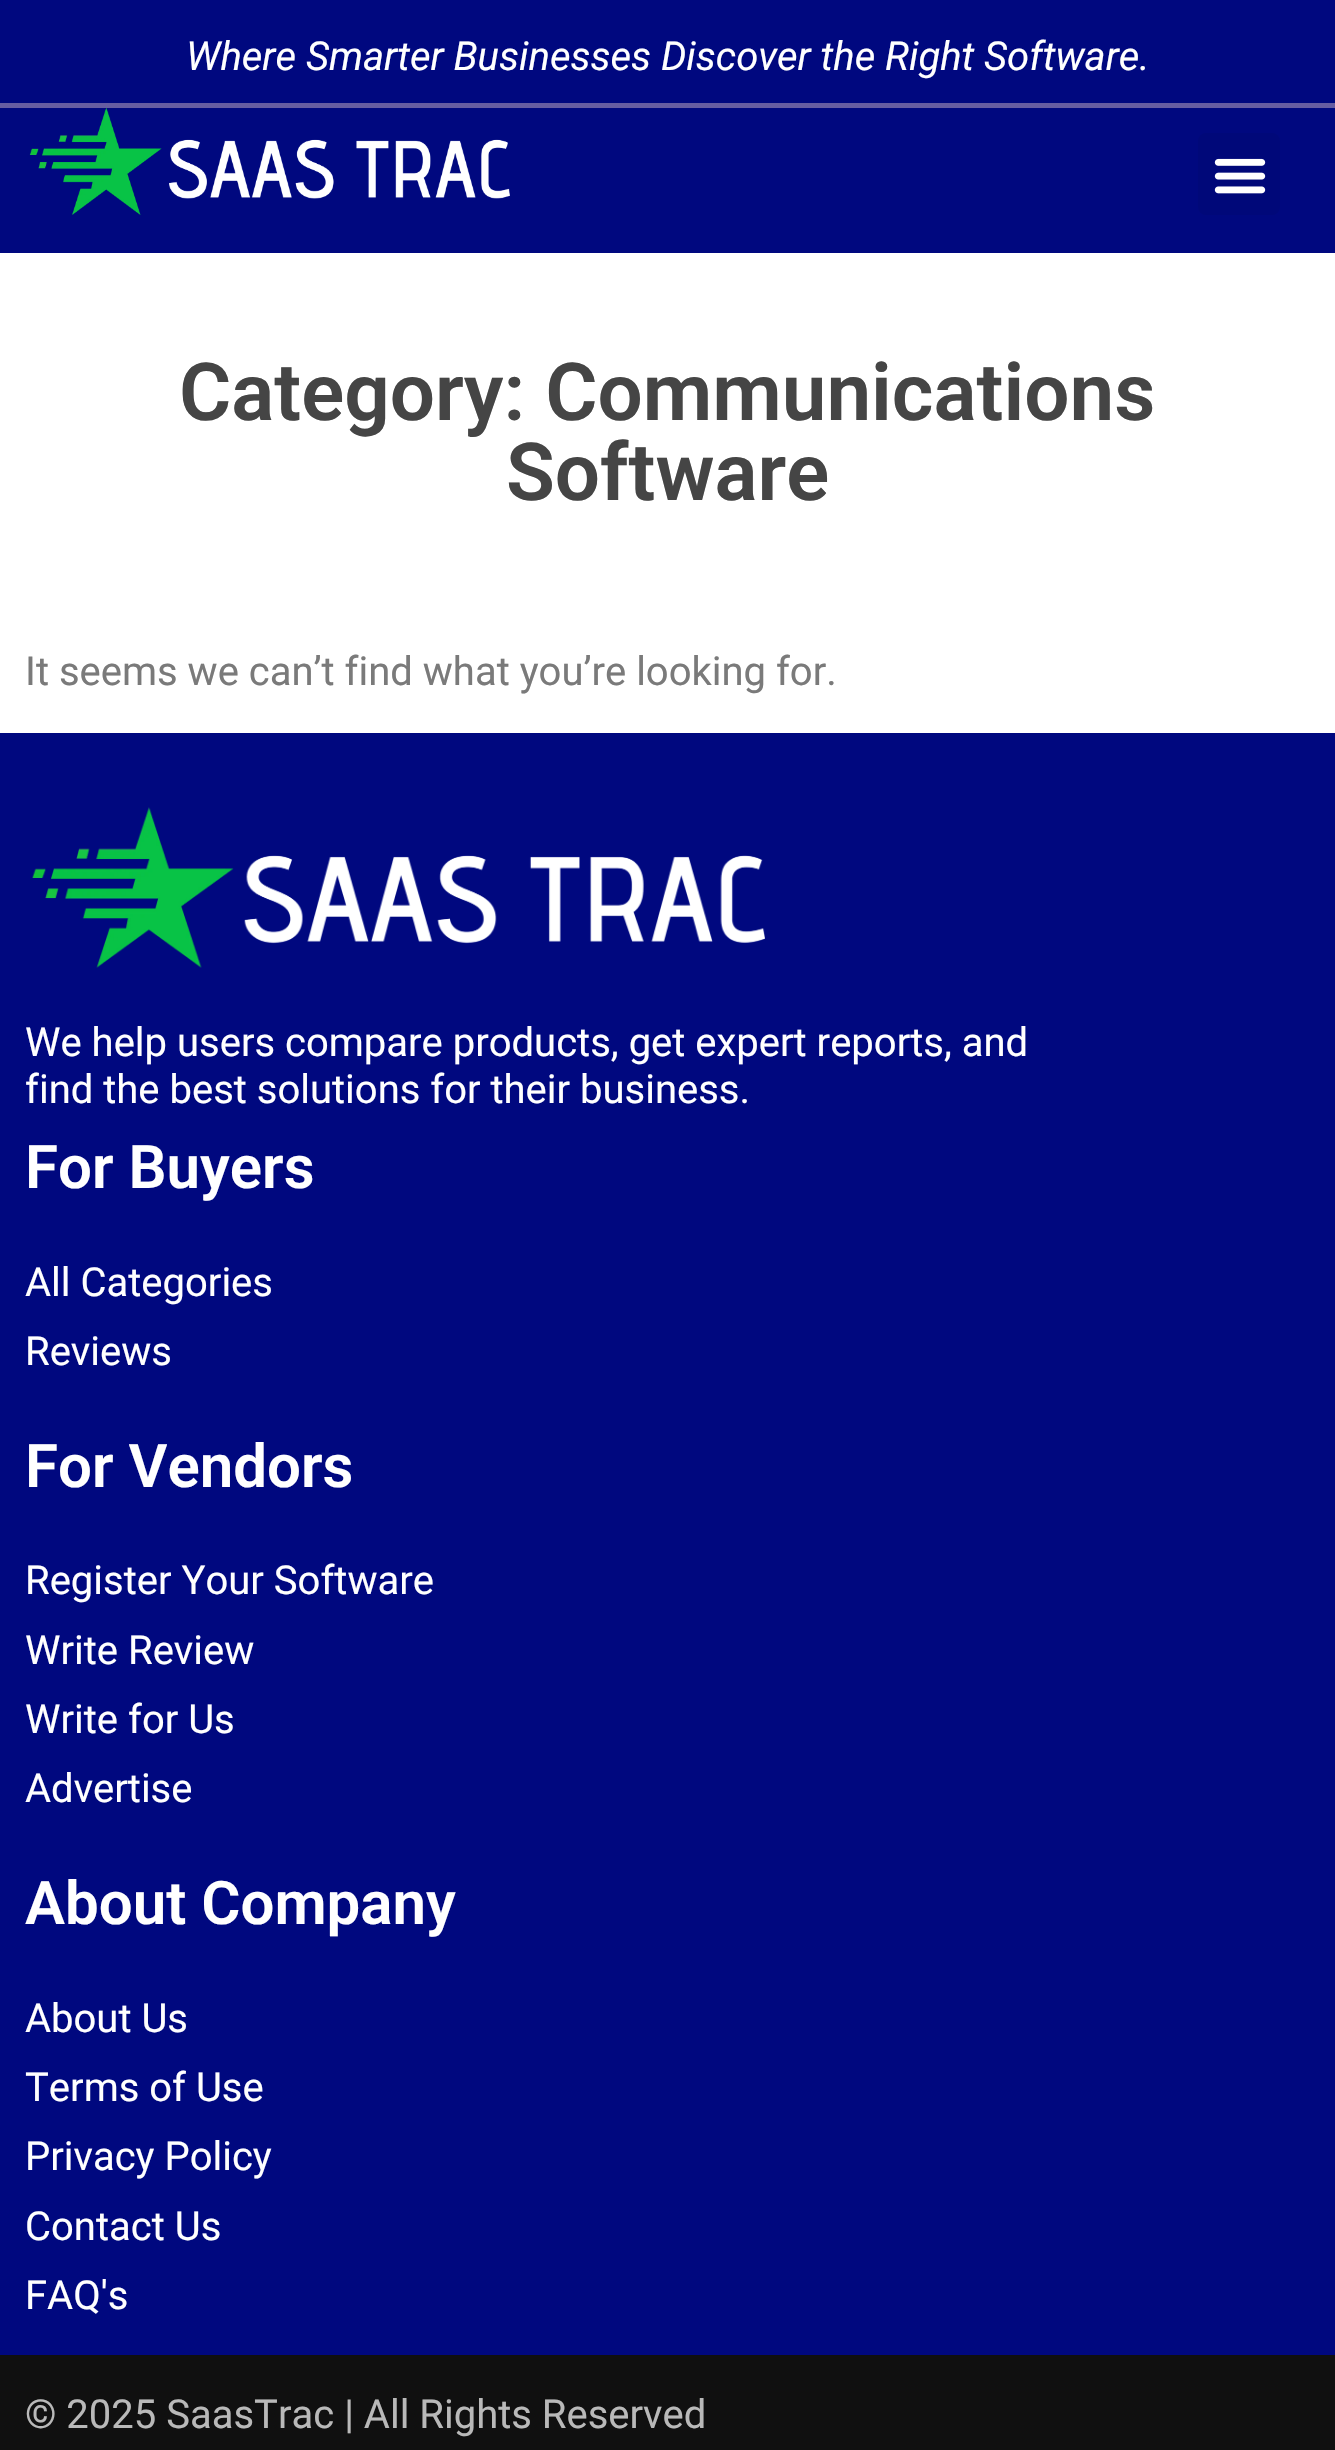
static SkFont makeFont(const char* family, int weight, float size, bool italic = false) {
  SkFontStyle style(weight, SkFontStyle::kNormal_Width,
    italic ? SkFontStyle::kItalic_Slant : SkFontStyle::kUpright_Slant);
  SkFont result(fontMgr->matchFamilyStyle(family, style), size);
  result.setSubpixel(true);
  return result;
}

static void text(SkCanvas* c, const char* s, float x, float y, const SkFont& font, SkColor color) {
  SkPaint ink(SkColor4f::FromColor(color));
  ink.setAntiAlias(true);
  c->drawString(s, x, y, font, ink);
}

static void box(SkCanvas* c, float l, float t, float r, float b, SkColor color) {
  SkPaint ink(SkColor4f::FromColor(color));
  ink.setAntiAlias(true);
  c->drawRect(SkRect::MakeLTRB(l, t, r, b), ink);
}

static void roundBox(SkCanvas* c, float l, float t, float r, float b, float radius, SkColor color) {
  SkPaint ink(SkColor4f::FromColor(color));
  ink.setAntiAlias(true);
  c->drawRoundRect(SkRect::MakeLTRB(l, t, r, b), radius, radius, ink);
}

static void picture(SkCanvas* c, const char* path, float l, float t, float r, float b) {
  auto image = SkImages::DeferredFromEncodedData(SkData::MakeFromFileName(path));
  c->drawImageRect(image, SkRect::MakeLTRB(l, t, r, b), SkSamplingOptions());
}

void draw(SkCanvas* c) {
  SkPaint paint;
  paint.setAntiAlias(true);
  c->clear(0xffffffff);
  box(c, 0, 0, 1335, 253, 0xff00087f);
  box(c, 0, 103, 1335, 108, 0xff665da2);
  SkFont face1 = makeFont("Roboto", 400, 40, true);
  text(c, "Where Smarter Businesses Discover the Right Software.", 186, 70, face1, 0xffffffff);
  picture(c, "img_01.png", 29, 107, 510, 215);
  roundBox(c, 1198, 133, 1280, 215, 8, 0xff000879);
  picture(c, "img_02.png", 1214, 158, 1266, 194);
  SkFont face2 = makeFont("Roboto", 600, 80);
  text(c, "Category: Communications", 179, 420, face2, 0xff454545);
  text(c, "Software", 506, 500, face2, 0xff454545);
  SkFont face3 = makeFont("Roboto", 400, 40);
  text(c, "It seems we can’t find what you’re looking for.", 25, 685, face3, 0xff7a7a7a);
  box(c, 0, 733, 1335, 2355, 0xff00087f);
  picture(c, "img_03.png", 32, 807, 765, 968);
  text(c, "We help users compare products, get expert reports, and", 25, 1056, face3, 0xffffffff);
  text(c, "find the best solutions for their business.", 25, 1103, face3, 0xffffffff);
  SkFont face4 = makeFont("Roboto", 600, 60);
  text(c, "For Buyers", 25, 1188, face4, 0xffffffff);
  text(c, "All Categories", 25, 1296, face3, 0xffffffff);
  text(c, "Reviews", 25, 1365, face3, 0xffffffff);
  text(c, "For Vendors", 25, 1487, face4, 0xffffffff);
  text(c, "Register Your Software", 25, 1594, face3, 0xffffffff);
  text(c, "Write Review", 25, 1664, face3, 0xffffffff);
  text(c, "Write for Us", 25, 1733, face3, 0xffffffff);
  text(c, "Advertise", 25, 1802, face3, 0xffffffff);
  text(c, "About Company", 25, 1924, face4, 0xffffffff);
  text(c, "About Us", 25, 2032, face3, 0xffffffff);
  text(c, "Terms of Use", 25, 2101, face3, 0xffffffff);
  text(c, "Privacy Policy", 25, 2170, face3, 0xffffffff);
  text(c, "Contact Us", 25, 2240, face3, 0xffffffff);
  text(c, "FAQ's", 25, 2309, face3, 0xffffffff);
  box(c, 0, 2355, 1335, 2450, 0xff101010);
  text(c, "© 2025 SaasTrac | All Rights Reserved", 25, 2428, face3, 0xffb9b9b9);
}
